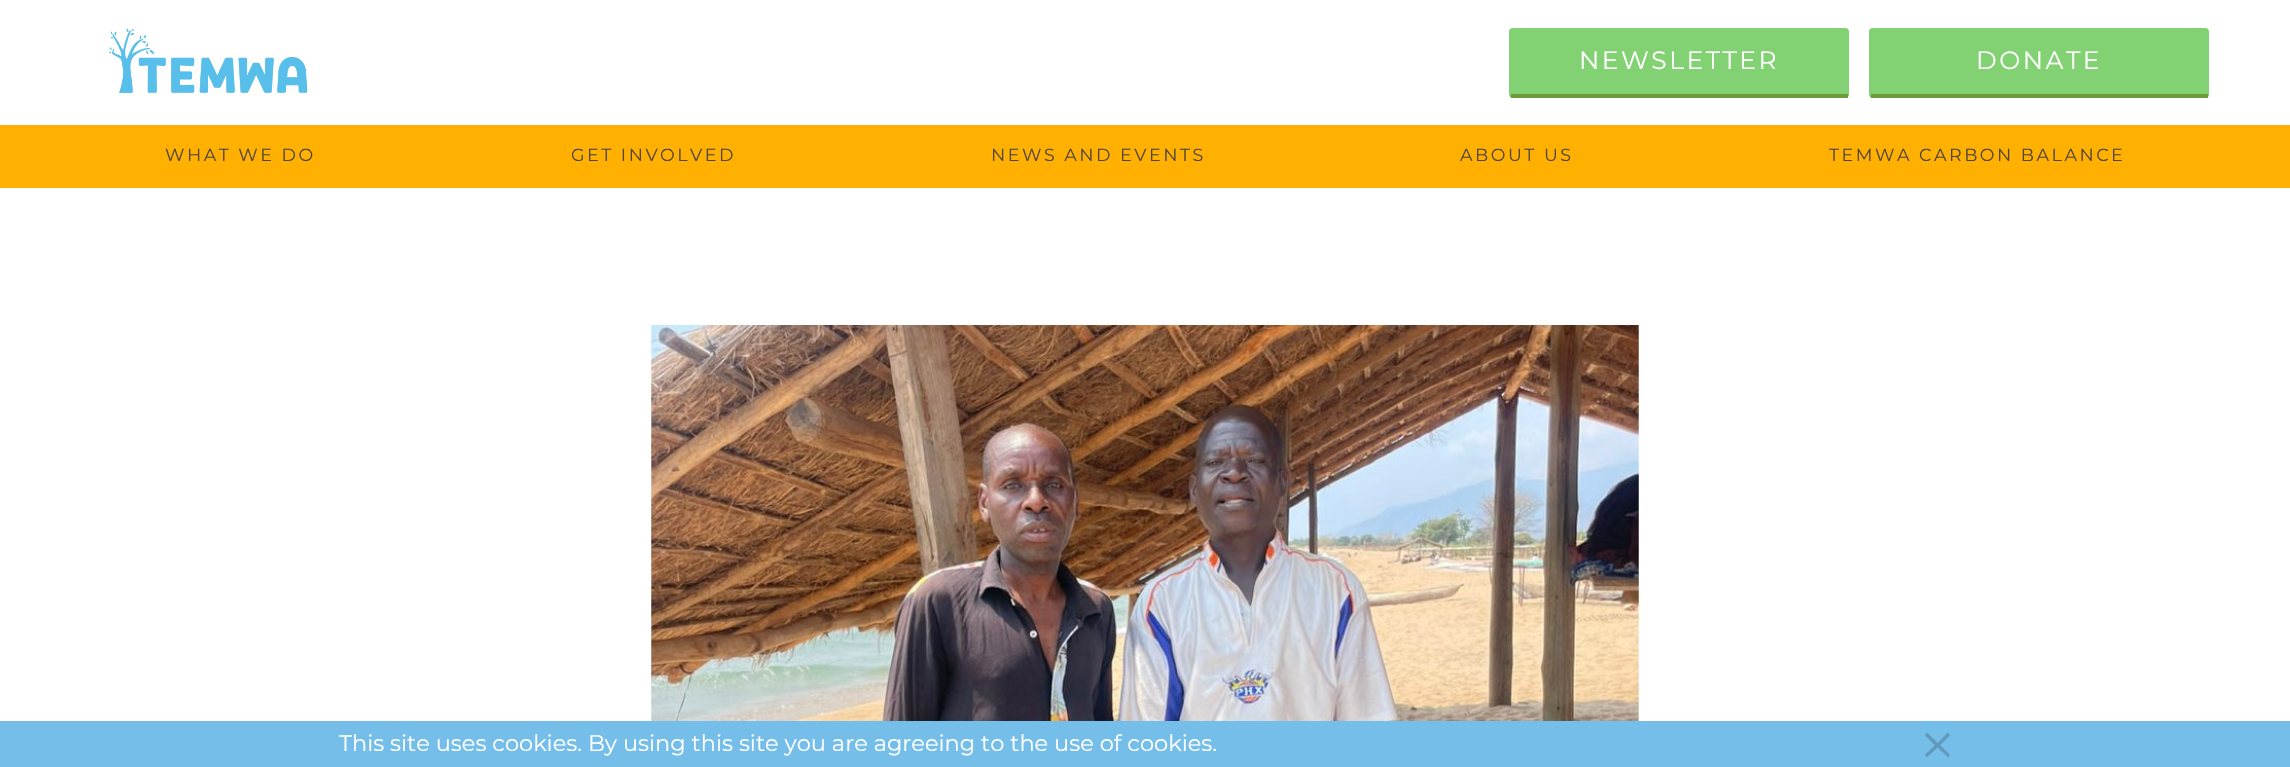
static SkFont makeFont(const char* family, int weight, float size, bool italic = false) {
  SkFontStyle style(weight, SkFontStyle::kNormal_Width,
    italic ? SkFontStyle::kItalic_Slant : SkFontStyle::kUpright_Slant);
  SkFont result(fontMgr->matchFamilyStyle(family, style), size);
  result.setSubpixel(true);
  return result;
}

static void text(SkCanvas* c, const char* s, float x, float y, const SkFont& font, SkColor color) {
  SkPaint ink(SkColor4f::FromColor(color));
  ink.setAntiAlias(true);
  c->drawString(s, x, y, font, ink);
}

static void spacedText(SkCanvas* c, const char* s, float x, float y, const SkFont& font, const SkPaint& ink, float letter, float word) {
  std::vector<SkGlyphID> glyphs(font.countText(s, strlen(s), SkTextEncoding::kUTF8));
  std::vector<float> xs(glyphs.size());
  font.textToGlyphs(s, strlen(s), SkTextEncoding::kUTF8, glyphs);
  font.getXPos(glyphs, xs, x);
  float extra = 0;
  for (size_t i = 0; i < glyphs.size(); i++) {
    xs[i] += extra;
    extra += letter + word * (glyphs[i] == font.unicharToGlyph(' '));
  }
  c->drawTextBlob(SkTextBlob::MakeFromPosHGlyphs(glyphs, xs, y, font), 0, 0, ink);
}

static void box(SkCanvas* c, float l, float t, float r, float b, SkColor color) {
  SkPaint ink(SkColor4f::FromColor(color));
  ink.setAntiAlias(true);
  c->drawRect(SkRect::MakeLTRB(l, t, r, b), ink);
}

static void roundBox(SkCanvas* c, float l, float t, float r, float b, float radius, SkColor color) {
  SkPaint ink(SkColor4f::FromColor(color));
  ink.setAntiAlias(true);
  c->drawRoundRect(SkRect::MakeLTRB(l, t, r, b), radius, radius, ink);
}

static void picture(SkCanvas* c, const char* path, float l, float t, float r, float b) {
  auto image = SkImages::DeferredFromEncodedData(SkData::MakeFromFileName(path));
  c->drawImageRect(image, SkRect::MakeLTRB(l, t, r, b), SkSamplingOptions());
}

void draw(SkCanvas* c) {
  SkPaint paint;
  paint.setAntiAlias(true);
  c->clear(0xffffffff);
  picture(c, "img_01.png", 109, 28, 308, 93);
  roundBox(c, 1509, 28, 1849, 98, 4, 0xff82d173);
  box(c, 1511, 94, 1848, 98, 0xff6c9c37);
  SkFont face1 = makeFont("Montserrat", 400, 25);
  paint.setColor(0xffffffff);
  spacedText(c, "NEWSLETTER", 1579, 69, face1, paint, 2.5f, 0);
  roundBox(c, 1869, 28, 2209, 98, 4, 0xff82d173);
  box(c, 1871, 94, 2208, 98, 0xff6c9c37);
  spacedText(c, "DONATE", 1976, 69, face1, paint, 2.5f, 0);
  box(c, 0, 125, 2290, 188, 0xffffb000);
  SkFont face2 = makeFont("Montserrat", 400, 17.5f);
  paint.setColor(0xff51463e);
  spacedText(c, "WHAT WE DO", 165, 161, face2, paint, 2.5f, 0);
  spacedText(c, "GET INVOLVED", 571, 161, face2, paint, 2.5f, 0);
  spacedText(c, "NEWS AND EVENTS", 991, 161, face2, paint, 2.5f, 0);
  spacedText(c, "ABOUT US", 1460, 161, face2, paint, 2.5f, 0);
  spacedText(c, "TEMWA CARBON BALANCE", 1829, 161, face2, paint, 2.5f, 0);
  picture(c, "img_02.png", 651, 325, 1639, 721);
  box(c, 0, 721, 2290, 767, 0xff75bee9);
  SkFont face3 = makeFont("Montserrat", 400, 22.5f);
  text(c, "This site uses cookies. By using this site you are agreeing to the use of cookies.", 339, 751, face3, 0xffffffff);
  picture(c, "img_03.png", 1925, 732, 1950, 758);
}
